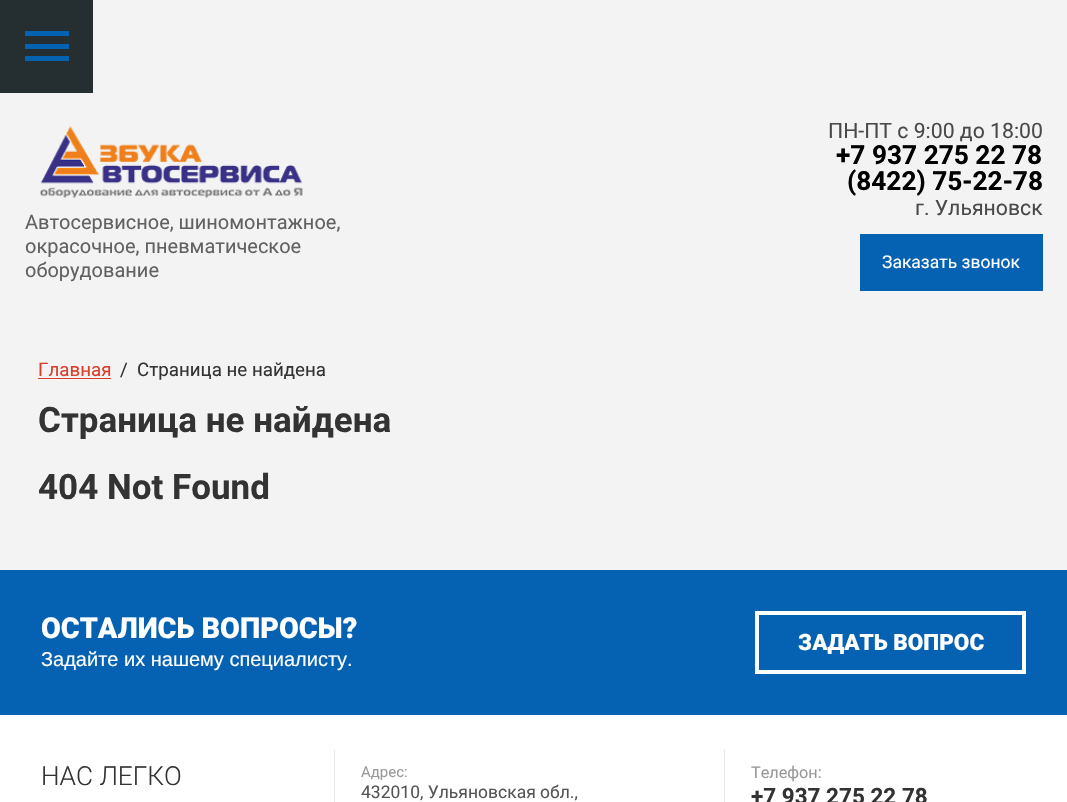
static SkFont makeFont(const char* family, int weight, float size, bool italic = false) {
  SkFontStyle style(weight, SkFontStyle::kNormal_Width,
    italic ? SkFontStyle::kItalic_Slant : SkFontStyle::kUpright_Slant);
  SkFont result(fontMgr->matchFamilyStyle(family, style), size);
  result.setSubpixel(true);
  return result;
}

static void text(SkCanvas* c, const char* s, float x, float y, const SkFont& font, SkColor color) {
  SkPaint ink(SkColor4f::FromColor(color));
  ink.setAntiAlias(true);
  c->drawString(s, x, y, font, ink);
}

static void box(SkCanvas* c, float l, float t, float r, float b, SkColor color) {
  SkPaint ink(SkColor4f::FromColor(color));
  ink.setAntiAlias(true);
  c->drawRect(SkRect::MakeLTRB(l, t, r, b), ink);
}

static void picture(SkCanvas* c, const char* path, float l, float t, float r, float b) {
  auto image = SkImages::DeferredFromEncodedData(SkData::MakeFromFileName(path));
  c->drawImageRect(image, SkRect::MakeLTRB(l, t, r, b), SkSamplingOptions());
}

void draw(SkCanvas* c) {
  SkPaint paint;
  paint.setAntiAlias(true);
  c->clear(0xfff3f3f3);
  box(c, 0, 0, 93, 93, 0xff252f32);
  paint.setColor(0xff0562b2);
  c->drawPath(SkPathBuilder().moveTo(25, 61).lineTo(25, 56).lineTo(69, 56).lineTo(69, 61).close().moveTo(25, 44).lineTo(69, 44).lineTo(69, 49).lineTo(25, 49).close().moveTo(25, 31).lineTo(69, 31).lineTo(69, 36).lineTo(25, 36).close().detach(), paint);
  picture(c, "img_01.png", 40, 126, 303, 198);
  SkFont face1 = makeFont("Roboto", 400, 20);
  text(c, "Автосервисное, шиномонтажное,", 25, 229, face1, 0xff616161);
  text(c, "окрасочное, пневматическое", 25, 253, face1, 0xff616161);
  text(c, "оборудование", 25, 277, face1, 0xff616161);
  SkFont face2 = makeFont("Roboto", 400, 21.25f);
  text(c, "ПН-ПТ с 9:00 до 18:00", 828, 138, face2, 0xff494949);
  SkFont face3 = makeFont("Roboto", 700, 26.25f);
  text(c, "+7 937 275 22 78", 836, 164, face3, 0xff000000);
  text(c, "(8422) 75-22-78", 847, 190, face3, 0xff000000);
  text(c, "г. Ульяновск", 915, 215, face2, 0xff494949);
  box(c, 860, 234, 1043, 291, 0xff0562b2);
  SkFont face4 = makeFont("Roboto", 400, 17.5f);
  text(c, "Заказать звонок", 882, 268, face4, 0xffffffff);
  SkFont face5 = makeFont("Roboto", 400, 18.75f);
  text(c, "Главная", 38, 376, face5, 0xffda3f2b);
  box(c, 38, 378, 111, 379, 0xffda3f2b);
  text(c, "/  Страница не найдена", 120, 376, face5, 0xff333333);
  SkFont face6 = makeFont("Roboto", 700, 35);
  text(c, "Страница не найдена", 38, 432, face6, 0xff333333);
  text(c, "404 Not Found", 38, 499, face6, 0xff333333);
  box(c, 0, 570, 1067, 715, 0xff0562b2);
  SkFont face7 = makeFont("Roboto", 900, 28.75f);
  text(c, "ОСТАЛИСЬ ВОПРОСЫ?", 41, 638, face7, 0xffffffff);
  SkFont face8 = makeFont("Liberation Sans", 400, 20);
  text(c, "Задайте их нашему специалисту.", 41, 666, face8, 0xffffffff);
  paint.setStyle(SkPaint::kStroke_Style);
  paint.setStrokeWidth(4);
  paint.setColor(0xffffffff);
  c->drawRect(SkRect::MakeLTRB(757, 613, 1024, 672), paint);
  SkFont face9 = makeFont("Roboto", 900, 22.5f);
  text(c, "ЗАДАТЬ ВОПРОС", 798, 650, face9, 0xffffffff);
  box(c, 0, 715, 1067, 802, 0xffffffff);
  SkFont face10 = makeFont("Roboto", 300, 26.25f);
  text(c, "НАС ЛЕГКО", 41, 785, face10, 0xff333333);
  box(c, 334, 750, 335, 802, 0xffe6e6e6);
  SkFont face11 = makeFont("Roboto", 400, 15);
  text(c, "Адрес:", 361, 777, face11, 0xff999999);
  text(c, "432010, Ульяновская обл.,", 361, 798, face4, 0xff555555);
  box(c, 724, 750, 725, 802, 0xffe6e6e6);
  SkFont face12 = makeFont("Roboto", 400, 16.25f);
  text(c, "Телефон:", 751, 778, face12, 0xff999999);
  SkFont face13 = makeFont("Roboto", 700, 22.5f);
  text(c, "+7 937 275 22 78", 751, 804, face13, 0xff333333);
}
